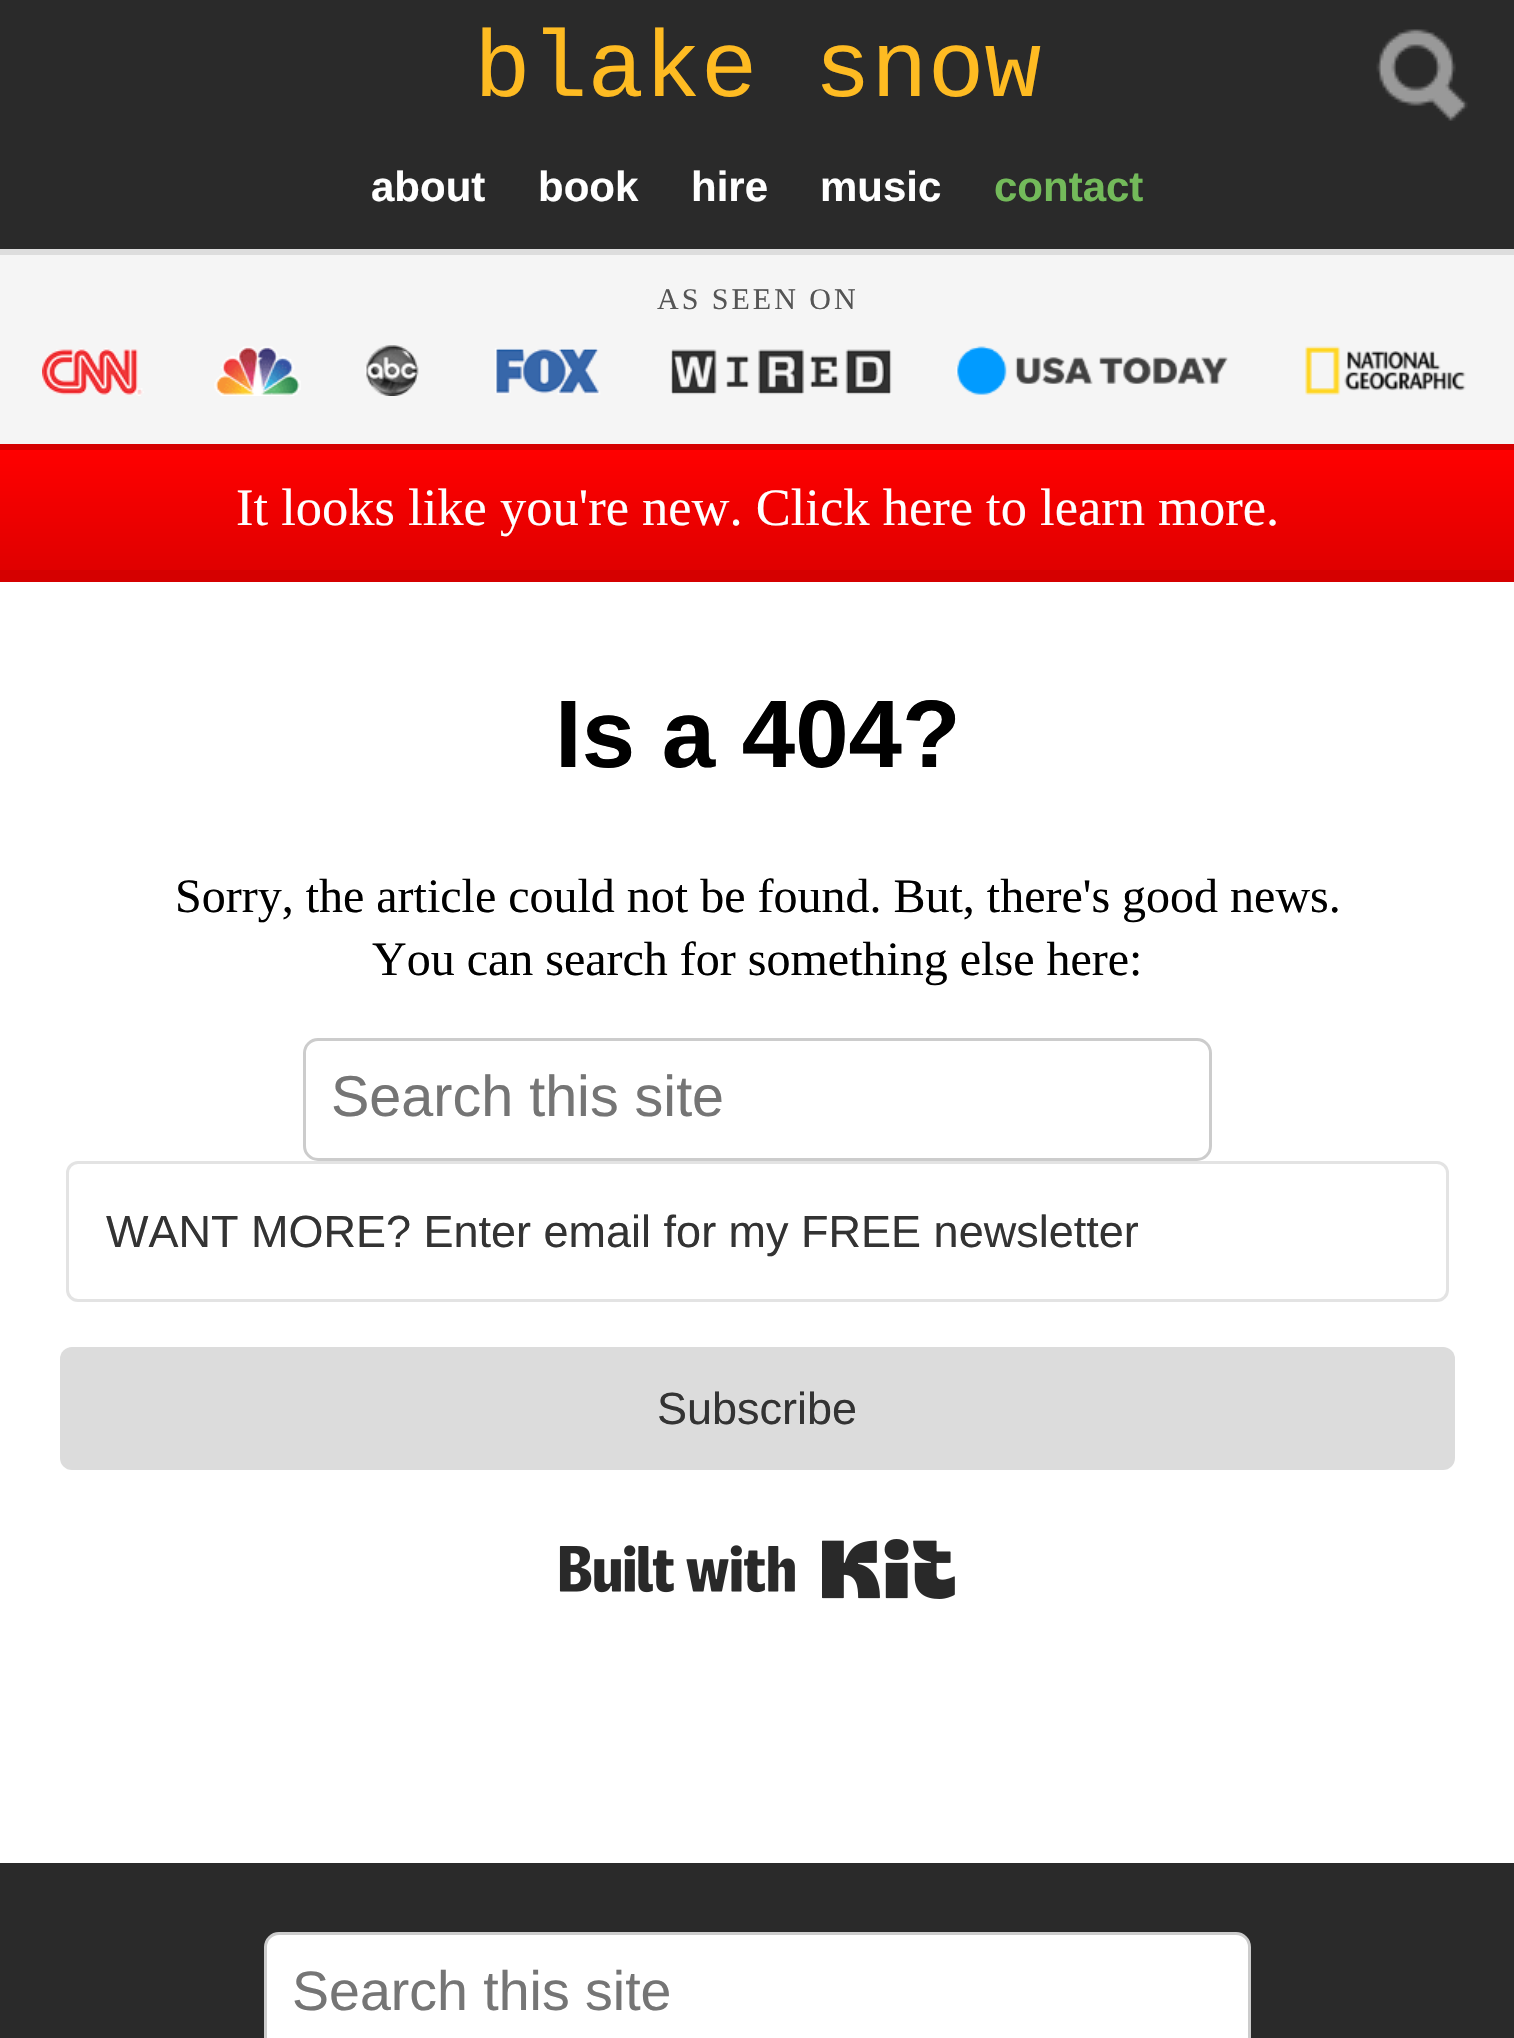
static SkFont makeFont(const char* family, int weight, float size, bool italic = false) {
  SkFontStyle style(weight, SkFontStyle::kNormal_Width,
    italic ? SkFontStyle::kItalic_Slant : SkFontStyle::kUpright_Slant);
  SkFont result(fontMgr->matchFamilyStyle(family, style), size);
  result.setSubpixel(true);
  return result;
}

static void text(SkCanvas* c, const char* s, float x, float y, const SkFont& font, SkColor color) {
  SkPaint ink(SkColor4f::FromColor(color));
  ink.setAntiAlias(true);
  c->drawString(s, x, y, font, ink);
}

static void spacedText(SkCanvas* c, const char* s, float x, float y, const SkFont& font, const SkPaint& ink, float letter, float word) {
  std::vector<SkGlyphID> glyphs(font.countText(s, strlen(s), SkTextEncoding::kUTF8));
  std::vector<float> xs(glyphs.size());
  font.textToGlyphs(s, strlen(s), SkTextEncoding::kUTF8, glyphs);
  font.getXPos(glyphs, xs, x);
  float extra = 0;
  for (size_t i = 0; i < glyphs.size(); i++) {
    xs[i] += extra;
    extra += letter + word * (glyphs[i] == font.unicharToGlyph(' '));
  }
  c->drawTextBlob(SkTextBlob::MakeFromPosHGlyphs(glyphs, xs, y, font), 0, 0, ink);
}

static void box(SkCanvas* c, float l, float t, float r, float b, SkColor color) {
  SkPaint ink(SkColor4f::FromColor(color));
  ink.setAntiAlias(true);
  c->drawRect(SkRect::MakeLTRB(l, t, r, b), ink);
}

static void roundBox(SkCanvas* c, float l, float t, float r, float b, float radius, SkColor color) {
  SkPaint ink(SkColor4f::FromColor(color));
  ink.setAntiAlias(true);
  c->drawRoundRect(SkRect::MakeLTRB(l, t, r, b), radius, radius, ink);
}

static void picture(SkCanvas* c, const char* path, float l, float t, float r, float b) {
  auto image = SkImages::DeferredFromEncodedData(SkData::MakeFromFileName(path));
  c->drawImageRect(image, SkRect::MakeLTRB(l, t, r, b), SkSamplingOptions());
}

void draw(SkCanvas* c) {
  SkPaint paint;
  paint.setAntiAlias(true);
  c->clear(0xff2a2a2a);
  SkFont face1 = makeFont("Liberation Mono", 400, 94.5f);
  text(c, "blake snow", 474, 96, face1, 0xfffebb22);
  picture(c, "img_01.png", 1376, 29, 1468, 121);
  SkFont face2 = makeFont("Liberation Sans", 700, 42);
  text(c, "about", 371, 201, face2, 0xffffffff);
  text(c, "book", 538, 201, face2, 0xffffffff);
  text(c, "hire", 691, 201, face2, 0xffffffff);
  text(c, "music", 820, 201, face2, 0xffffffff);
  text(c, "contact", 994, 201, face2, 0xff73ba5a);
  box(c, 0, 255, 1514, 444, 0xfff5f5f5);
  box(c, 0, 249, 1514, 255, 0xffdddddd);
  SkFont face3 = makeFont("Liberation Serif", 400, 30);
  paint.setColor(0xff555555);
  spacedText(c, "AS SEEN ON", 657, 309, face3, paint, 3, 0);
  picture(c, "img_02.png", 42, 345, 1466, 396);
  {
    const SkColor colors[] = {0xffff0000, 0xffe00000};
    const float stops[] = {0, 1};
    const SkPoint ends[] = {{758, 450}, {758, 570}};
    paint.setShader(SkGradientShader::MakeLinear(ends, colors, stops, 2, SkTileMode::kClamp));
    paint.setAlpha(255);
  }
  c->drawRect(SkRect::MakeLTRB(0, 450, 1514, 570), paint);
  box(c, 0, 444, 1514, 450, 0xffd50000);
  box(c, 0, 570, 1514, 582, 0xffd50000);
  SkFont face4 = makeFont("Liberation Serif", 400, 52.5f);
  text(c, "It looks like you're new. Click here to learn more.", 236, 525, face4, 0xffffffff);
  box(c, 0, 582, 1514, 1863, 0xffffffff);
  SkFont face5 = makeFont("Liberation Sans", 700, 96);
  text(c, "Is a 404?", 555, 767, face5, 0xff000000);
  SkFont face6 = makeFont("Liberation Serif", 400, 48);
  text(c, "Sorry, the article could not be found. But, there's good news.", 175, 912, face6, 0xff000000);
  text(c, "You can search for something else here:", 372, 975, face6, 0xff000000);
  paint.setStyle(SkPaint::kStroke_Style);
  paint.setStrokeWidth(3);
  paint.setShader(nullptr);
  paint.setColor(0xffcccccc);
  c->drawRoundRect(SkRect::MakeLTRB(304.5f, 1039.5f, 1210.5f, 1159.5f), 13.5f, 13.5f, paint);
  SkFont face7 = makeFont("Liberation Sans", 400, 57.5f);
  text(c, "Search this site", 331, 1116, face7, 0xff757575);
  paint.setColor(0xffe3e3e3);
  c->drawRoundRect(SkRect::MakeLTRB(67.5f, 1162.5f, 1447.5f, 1300.5f), 10.5f, 10.5f, paint);
  SkFont face8 = makeFont("Liberation Sans", 400, 45);
  text(c, "WANT MORE? Enter email for my FREE newsletter", 106, 1247, face8, 0xff333333);
  roundBox(c, 60, 1347, 1455, 1470, 12, 0xffdcdcdc);
  text(c, "Subscribe", 657, 1424, face8, 0xff333333);
  picture(c, "img_03.png", 559, 1539, 955, 1599);
  paint.setStyle(SkPaint::kFill_Style);
  paint.setColor(0xffffffff);
  c->drawRoundRect(SkRect::MakeLTRB(265.5f, 1933.5f, 1249.5f, 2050.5f), 13.5f, 13.5f, paint);
  paint.setStyle(SkPaint::kStroke_Style);
  paint.setColor(0xffcccccc);
  c->drawRoundRect(SkRect::MakeLTRB(265.5f, 1933.5f, 1249.5f, 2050.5f), 13.5f, 13.5f, paint);
  SkFont face9 = makeFont("Liberation Sans", 400, 55.5f);
  text(c, "Search this site", 292, 2010, face9, 0xff757575);
}
